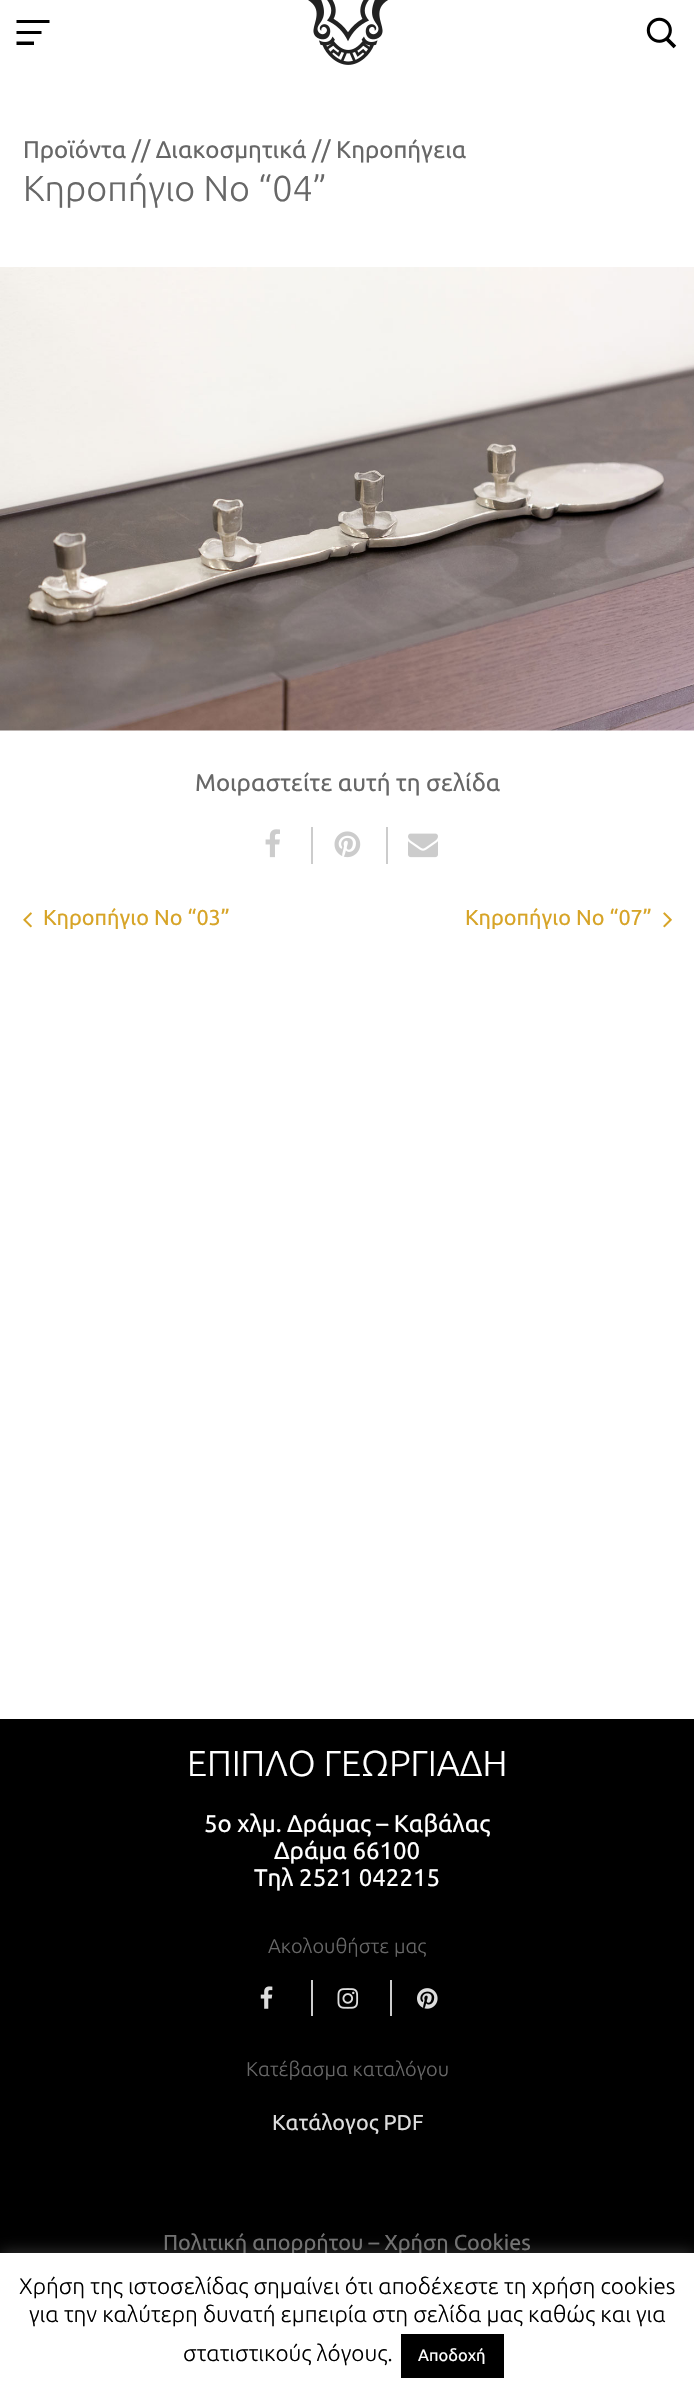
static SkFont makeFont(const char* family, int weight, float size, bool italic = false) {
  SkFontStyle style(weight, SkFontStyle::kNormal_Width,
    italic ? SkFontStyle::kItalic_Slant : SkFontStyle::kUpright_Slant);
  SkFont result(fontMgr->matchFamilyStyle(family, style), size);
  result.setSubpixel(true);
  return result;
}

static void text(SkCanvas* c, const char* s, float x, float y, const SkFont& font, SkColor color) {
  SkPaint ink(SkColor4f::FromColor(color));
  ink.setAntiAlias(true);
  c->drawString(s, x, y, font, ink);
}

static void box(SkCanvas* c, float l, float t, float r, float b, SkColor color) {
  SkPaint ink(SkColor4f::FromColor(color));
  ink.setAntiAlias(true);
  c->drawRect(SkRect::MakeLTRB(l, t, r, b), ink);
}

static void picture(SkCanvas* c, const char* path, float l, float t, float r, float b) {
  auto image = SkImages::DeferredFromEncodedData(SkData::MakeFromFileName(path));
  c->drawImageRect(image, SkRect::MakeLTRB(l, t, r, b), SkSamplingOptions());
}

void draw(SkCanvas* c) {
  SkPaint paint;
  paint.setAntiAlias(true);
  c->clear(0xffffffff);
  paint.setColor(0xff000000);
  c->drawPath(SkPathBuilder().moveTo(16.5f, 20).lineTo(49.5f, 20).lineTo(49.5f, 23).lineTo(16.5f, 23).close().moveTo(16.5f, 31).lineTo(41.5f, 31).lineTo(41.5f, 34).lineTo(16.5f, 34).close().moveTo(16.5f, 41.5f).lineTo(34, 41.5f).lineTo(34, 45).lineTo(16.5f, 45).close().detach(), paint);
  picture(c, "img_01.png", 308, 0, 388, 65);
  picture(c, "img_02.png", 646, 17, 677, 49);
  SkFont face1 = makeFont("Ubuntu", 400, 24);
  text(c, "Προϊόντα // Διακοσμητικά // Κηροπήγεια", 23, 158, face1, 0xff676767);
  SkFont face2 = makeFont("Ubuntu", 300, 36);
  text(c, "Κηροπήγιο Νο “04”", 23, 201, face2, 0xff676767);
  picture(c, "img_03.png", 0, 267, 694, 731);
  text(c, "Μοιραστείτε αυτή τη σελίδα", 195, 791, face1, 0xff676767);
  picture(c, "img_04.png", 265, 829, 280, 858);
  box(c, 311, 827, 313, 864, 0xffcccccc);
  picture(c, "img_05.png", 334, 831, 361, 858);
  box(c, 386, 827, 388, 864, 0xffcccccc);
  picture(c, "img_06.png", 408, 833, 438, 858);
  picture(c, "img_07.png", 23, 912, 32, 928);
  SkFont face3 = makeFont("Ubuntu", 400, 21.6f);
  text(c, "Κηροπήγιο Νο “03”", 43, 925, face3, 0xffd7a427);
  text(c, "Κηροπήγιο Νο “07”", 465, 925, face3, 0xffd7a427);
  picture(c, "img_08.png", 663, 912, 672, 928);
  box(c, 0, 1719, 694, 2253, 0xff000000);
  text(c, "ΕΠΙΠΛΟ ΓΕΩΡΓΙΑΔΗ", 187, 1776, face2, 0xffffffff);
  text(c, "5ο χλμ. Δράμας – Καβάλας", 204, 1832, face1, 0xffffffff);
  text(c, "Δράμα 66100", 274, 1859, face1, 0xffffffff);
  text(c, "Τηλ 2521 042215", 254, 1886, face1, 0xffffffff);
  SkFont face4 = makeFont("Ubuntu", 300, 20);
  text(c, "Ακολουθήστε μας", 268, 1953, face4, 0xff676767);
  picture(c, "img_09.png", 260, 1986, 273, 2009);
  box(c, 311, 1980, 313, 2016, 0xffcccccc);
  picture(c, "img_10.png", 337, 1988, 359, 2009);
  box(c, 390, 1980, 392, 2016, 0xffcccccc);
  picture(c, "img_11.png", 417, 1988, 438, 2009);
  text(c, "Κατέβασμα καταλόγου", 246, 2076, face4, 0xff676767);
  text(c, "Κατάλογος PDF", 272, 2130, face3, 0xffdddddd);
  text(c, "Πολιτική απορρήτου – Χρήση Cookies", 163, 2250, face3, 0xff6f6f6f);
  paint.setColor(0x4dacabab);
  paint.setMaskFilter(SkMaskFilter::MakeBlur(kNormal_SkBlurStyle, 7.5f));
  c->drawRect(SkRect::MakeLTRB(0, 2252, 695, 2402), paint);
  paint.setMaskFilter(nullptr);
  box(c, 0, 2253, 694, 2402, 0xffffffff);
  SkFont face5 = makeFont("Ubuntu", 300, 22.5f);
  text(c, "Χρήση της ιστοσελίδας σημαίνει ότι αποδέχεστε τη χρήση cookies", 19, 2294, face5, 0xff000000);
  text(c, "για την καλύτερη δυνατή εμπειρία στη σελίδα μας καθώς και για", 29, 2322, face5, 0xff000000);
  text(c, "στατιστικούς λόγους.", 183, 2361, face5, 0xff000000);
  box(c, 401, 2334, 504, 2378, 0xff000000);
  SkFont face6 = makeFont("Ubuntu", 400, 16.5f);
  text(c, "Αποδοχή", 418, 2361, face6, 0xffffffff);
}
